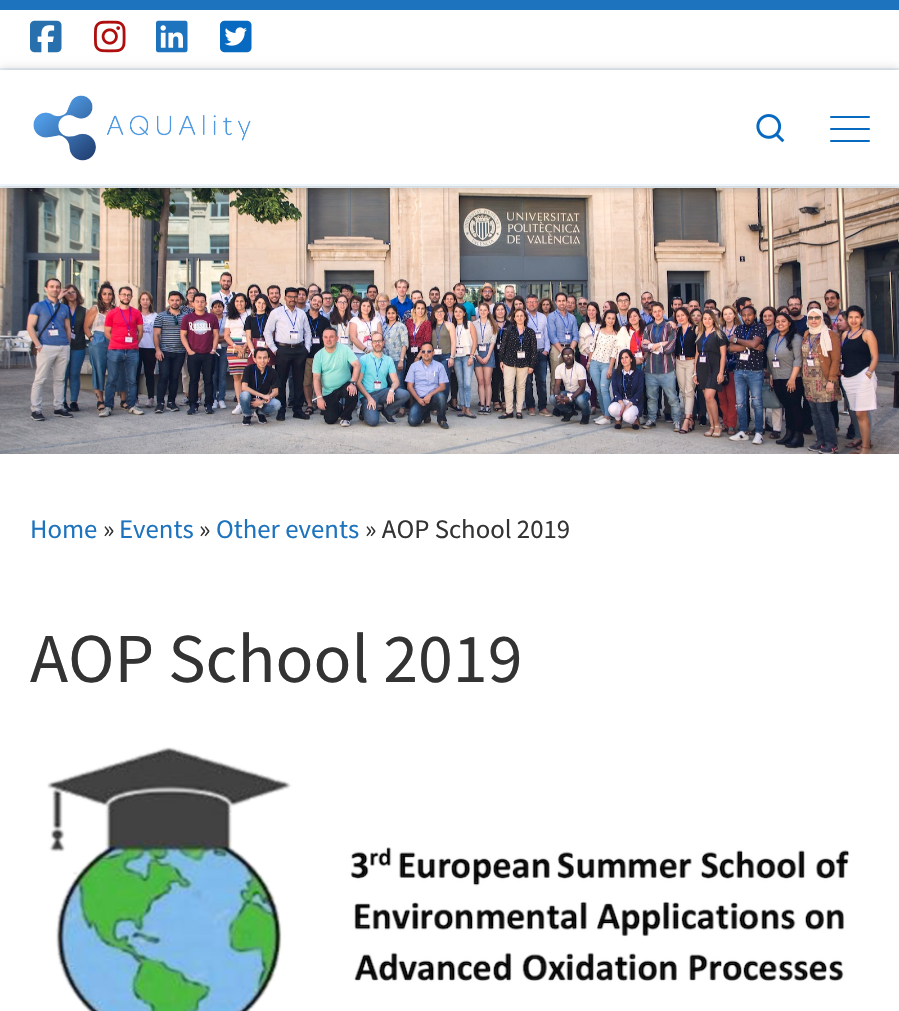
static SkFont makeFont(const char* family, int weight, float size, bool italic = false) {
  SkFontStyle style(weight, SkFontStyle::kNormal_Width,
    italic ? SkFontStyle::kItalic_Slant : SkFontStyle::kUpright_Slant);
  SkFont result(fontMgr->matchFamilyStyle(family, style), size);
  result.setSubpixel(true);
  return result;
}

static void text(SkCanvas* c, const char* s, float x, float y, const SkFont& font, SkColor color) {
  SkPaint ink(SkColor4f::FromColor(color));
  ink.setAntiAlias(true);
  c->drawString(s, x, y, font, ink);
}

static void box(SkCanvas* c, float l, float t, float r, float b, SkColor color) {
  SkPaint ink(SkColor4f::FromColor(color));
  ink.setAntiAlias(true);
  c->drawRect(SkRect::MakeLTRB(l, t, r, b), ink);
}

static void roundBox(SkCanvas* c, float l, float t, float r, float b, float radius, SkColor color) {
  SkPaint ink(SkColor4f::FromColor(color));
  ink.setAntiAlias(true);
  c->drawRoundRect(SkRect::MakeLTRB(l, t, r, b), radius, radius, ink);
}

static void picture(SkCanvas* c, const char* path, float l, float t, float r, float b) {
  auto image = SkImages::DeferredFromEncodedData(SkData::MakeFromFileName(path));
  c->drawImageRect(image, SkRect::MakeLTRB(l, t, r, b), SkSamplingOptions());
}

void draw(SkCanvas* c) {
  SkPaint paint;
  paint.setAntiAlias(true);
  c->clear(0xffffffff);
  picture(c, "img_07.png", 0, 188, 899, 454);
  c->save();
  c->clipRect(SkRect::MakeLTRB(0, 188, 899, 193));
  paint.setColor(0x14666666);
  paint.setMaskFilter(SkMaskFilter::MakeBlur(kNormal_SkBlurStyle, 2));
  c->drawRect(SkRect::MakeLTRB(0, 4, 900, 192), paint);
  paint.setMaskFilter(nullptr);
  c->restore();
  box(c, 0, 0, 899, 10, 0xff1e73be);
  box(c, 0, 68, 899, 70, 0xffe9f2f9);
  picture(c, "img_01.png", 30, 20, 62, 53);
  picture(c, "img_02.png", 94, 20, 126, 53);
  picture(c, "img_03.png", 156, 20, 188, 53);
  picture(c, "img_04.png", 220, 20, 252, 53);
  box(c, 0, 186, 899, 188, 0xffecf4fa);
  c->save();
  c->clipPath(SkPathBuilder(SkPathFillType::kEvenOdd).moveTo(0, 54).lineTo(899, 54).lineTo(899, 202).lineTo(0, 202).close().moveTo(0, 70).lineTo(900, 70).lineTo(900, 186).lineTo(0, 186).close().detach(), true);
  paint.setColor(0x33000000);
  paint.setMaskFilter(SkMaskFilter::MakeBlur(kNormal_SkBlurStyle, 5));
  c->drawRect(SkRect::MakeLTRB(0, 70, 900, 186), paint);
  paint.setMaskFilter(nullptr);
  c->restore();
  picture(c, "img_05.png", 33, 95, 251, 161);
  picture(c, "img_06.png", 756, 114, 785, 143);
  roundBox(c, 830, 116, 870, 118, 1, 0xff0769bf);
  roundBox(c, 830, 128, 870, 130, 1, 0xff0769bf);
  roundBox(c, 830, 140, 870, 142, 1, 0xff0769bf);
  box(c, 0, 184, 899, 186, 0xffecf4fa);
  SkFont face1 = makeFont("Source Sans Pro", 400, 26.75f);
  text(c, "Home", 30, 538, face1, 0xff1e73be);
  text(c, "»", 103, 538, face1, 0xff333333);
  text(c, "Events", 119, 538, face1, 0xff1e73be);
  text(c, "»", 199, 538, face1, 0xff333333);
  text(c, "Other events", 216, 538, face1, 0xff1e73be);
  text(c, "» AOP School 2019", 365, 538, face1, 0xff333333);
  SkFont face2 = makeFont("Source Sans Pro", 400, 70);
  text(c, "AOP School 2019", 30, 682, face2, 0xff333333);
  picture(c, "img_08.png", 47, 747, 850, 1011);
}
